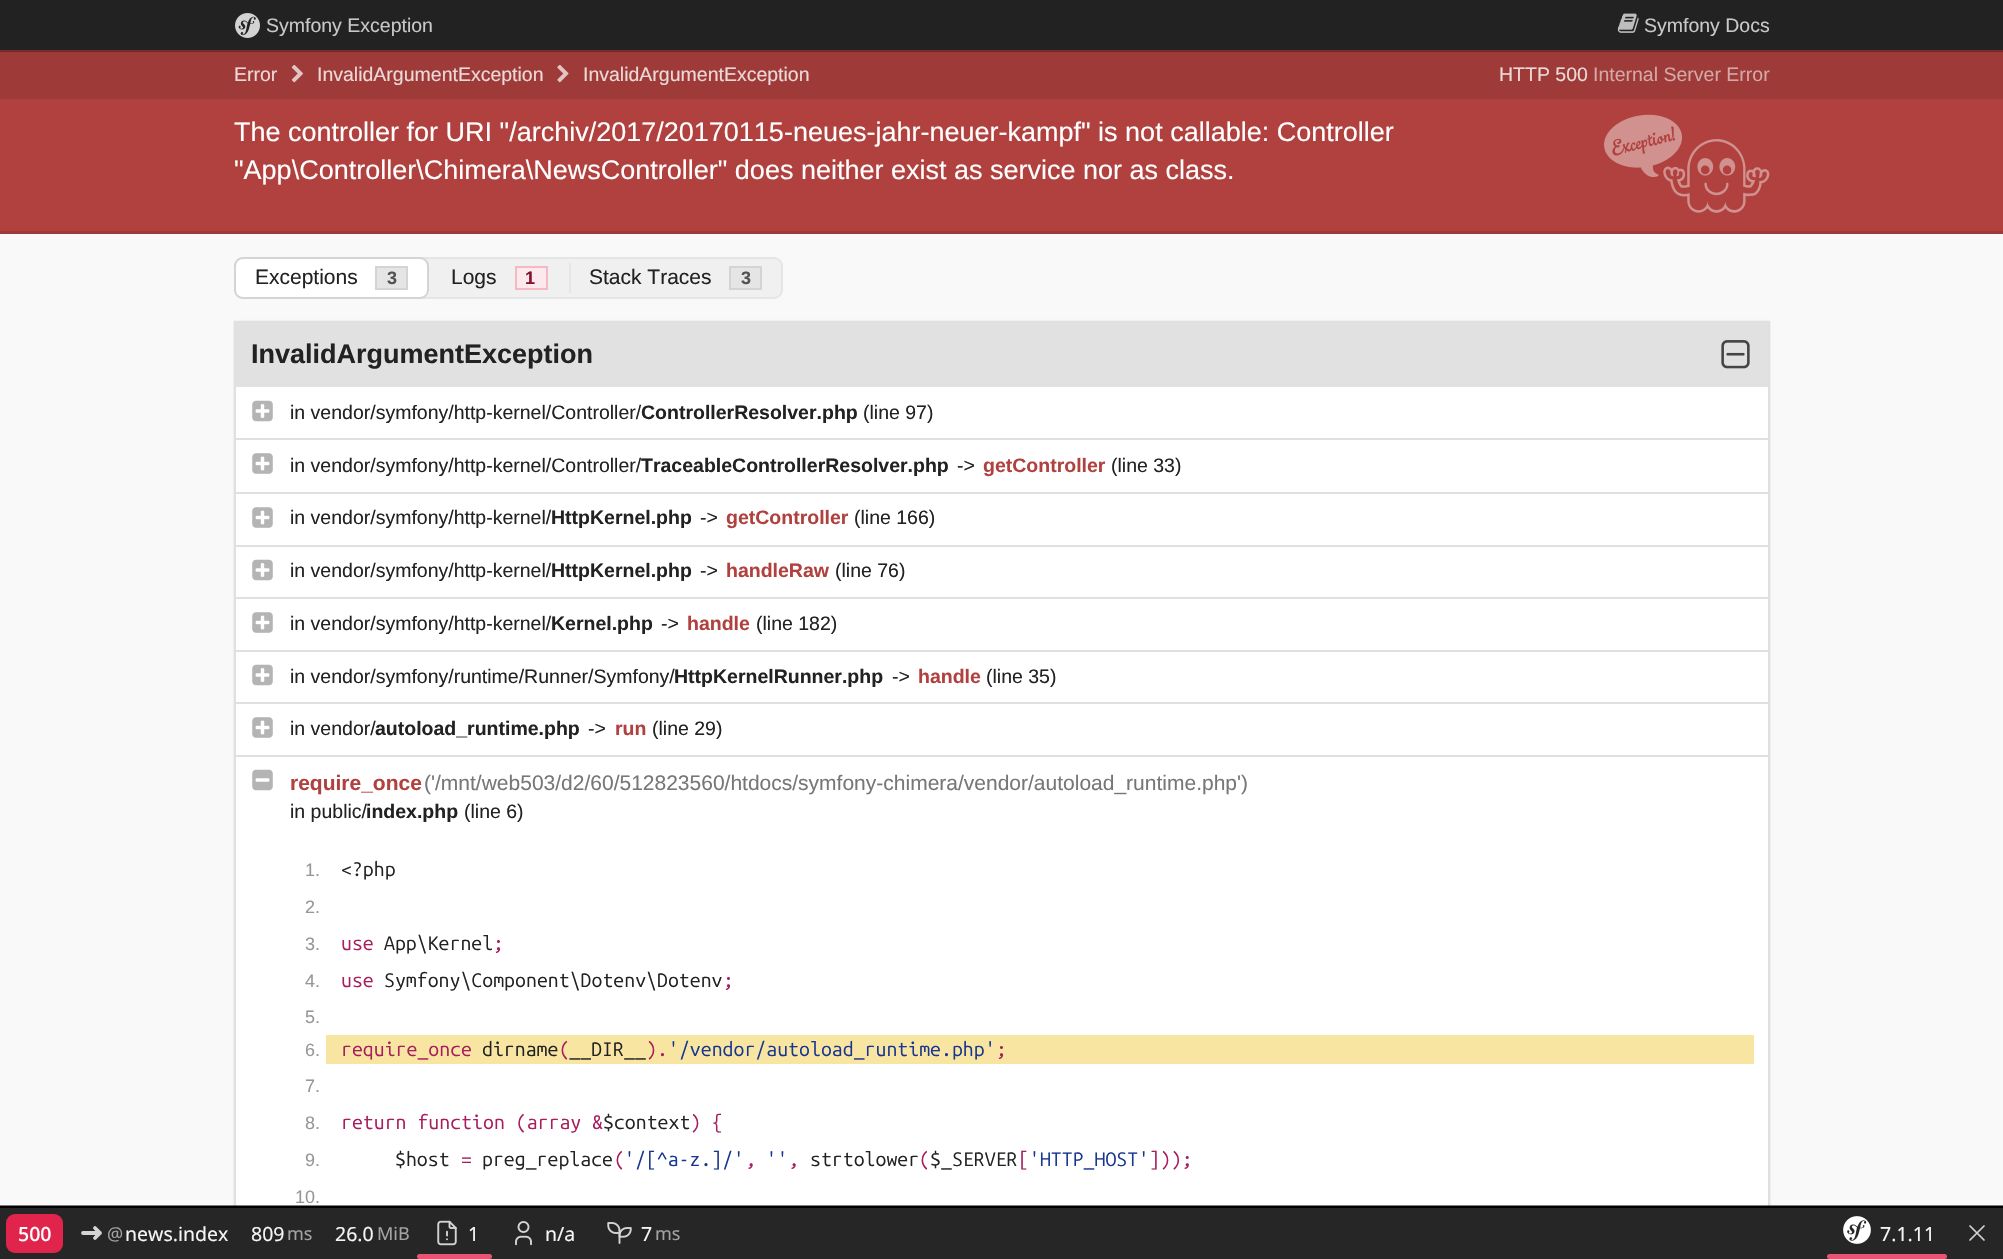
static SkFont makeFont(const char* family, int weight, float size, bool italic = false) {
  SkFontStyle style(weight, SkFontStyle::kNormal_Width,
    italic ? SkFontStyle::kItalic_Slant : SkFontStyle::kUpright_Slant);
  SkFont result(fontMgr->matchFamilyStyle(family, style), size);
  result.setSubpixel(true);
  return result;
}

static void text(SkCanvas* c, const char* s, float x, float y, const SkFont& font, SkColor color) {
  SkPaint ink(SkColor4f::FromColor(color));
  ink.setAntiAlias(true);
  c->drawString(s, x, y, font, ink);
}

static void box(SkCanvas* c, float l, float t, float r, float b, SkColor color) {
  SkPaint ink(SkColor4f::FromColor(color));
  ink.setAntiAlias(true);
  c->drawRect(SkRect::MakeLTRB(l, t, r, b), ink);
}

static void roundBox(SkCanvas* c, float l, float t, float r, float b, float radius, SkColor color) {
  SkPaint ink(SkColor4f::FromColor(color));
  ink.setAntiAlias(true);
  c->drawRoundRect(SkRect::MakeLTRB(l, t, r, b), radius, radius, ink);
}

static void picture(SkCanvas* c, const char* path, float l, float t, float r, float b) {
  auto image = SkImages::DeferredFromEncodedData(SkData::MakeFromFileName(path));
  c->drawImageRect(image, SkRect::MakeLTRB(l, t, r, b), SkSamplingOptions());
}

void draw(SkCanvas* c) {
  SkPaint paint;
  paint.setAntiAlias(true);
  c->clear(0xfff9f9f9);
  box(c, 0, 0, 2003, 50, 0xff222222);
  picture(c, "img_01.png", 235, 13, 260, 38);
  SkFont face1 = makeFont("Liberation Sans", 400, 19.5f);
  text(c, "Symfony Exception", 266, 32, face1, 0xffc8c8c8);
  picture(c, "img_02.png", 1617, 13, 1639, 33);
  text(c, "Symfony Docs", 1644, 32, face1, 0xffc8c8c8);
  box(c, 0, 99, 2003, 231, 0xffb0413e);
  box(c, 0, 52, 2003, 99, 0xff9e3b38);
  box(c, 0, 50, 2003, 51, 0xff7b2e2b);
  box(c, 0, 51, 2003, 52, 0xff6f2927);
  box(c, 0, 231, 2003, 234, 0xff9e3b38);
  text(c, "Error", 234, 81, face1, 0xffecd8d7);
  picture(c, "img_03.png", 291, 65, 303, 83);
  text(c, "InvalidArgumentException", 317, 81, face1, 0xffecd8d7);
  picture(c, "img_04.png", 557, 65, 569, 83);
  text(c, "InvalidArgumentException", 583, 81, face1, 0xffecd8d7);
  text(c, "HTTP 500", 1499, 81, face1, 0xffecd8d7);
  text(c, "Internal Server Error", 1593, 81, face1, 0xffd4a8a7);
  SkFont face2 = makeFont("Liberation Sans", 400, 27);
  text(c, "The controller for URI \"/archiv/2017/20170115-neues-jahr-neuer-kampf\" is not callable: Controller", 234, 141, face2, 0xffffffff);
  text(c, "\"App\\Controller\\Chimera\\NewsController\" does neither exist as service nor as class.", 234, 179, face2, 0xffffffff);
  picture(c, "img_05.png", 1604, 114, 1770, 213);
  paint.setColor(0xfff0f0f0);
  c->drawRoundRect(SkRect::MakeLTRB(235, 258, 782, 298), 8, 8, paint);
  paint.setStyle(SkPaint::kStroke_Style);
  paint.setStrokeWidth(2);
  paint.setColor(0xffe5e5e5);
  c->drawRoundRect(SkRect::MakeLTRB(235, 258, 782, 298), 8, 8, paint);
  paint.setStyle(SkPaint::kFill_Style);
  paint.setColor(0xffffffff);
  c->drawRoundRect(SkRect::MakeLTRB(235, 258, 428, 298), 8, 8, paint);
  paint.setStyle(SkPaint::kStroke_Style);
  paint.setColor(0xffd4d4d4);
  c->drawRoundRect(SkRect::MakeLTRB(235, 258, 428, 298), 8, 8, paint);
  SkFont face3 = makeFont("Liberation Sans", 400, 21);
  text(c, "Exceptions", 255, 284, face3, 0xff222222);
  paint.setStyle(SkPaint::kFill_Style);
  paint.setColor(0xffe5e5e5);
  c->drawRect(SkRect::MakeLTRB(376, 267, 407, 289), paint);
  paint.setStyle(SkPaint::kStroke_Style);
  paint.setColor(0xffd4d4d4);
  c->drawRect(SkRect::MakeLTRB(376, 267, 407, 289), paint);
  SkFont face4 = makeFont("Liberation Sans", 700, 18);
  text(c, "3", 387, 284, face4, 0xff525252);
  text(c, "Logs", 451, 284, face3, 0xff222222);
  paint.setStyle(SkPaint::kFill_Style);
  paint.setColor(0xfffce9ed);
  c->drawRect(SkRect::MakeLTRB(516, 267, 547, 289), paint);
  paint.setStyle(SkPaint::kStroke_Style);
  paint.setColor(0xfff5b8c5);
  c->drawRect(SkRect::MakeLTRB(516, 267, 547, 289), paint);
  text(c, "1", 525, 284, face4, 0xff83122a);
  box(c, 569, 263, 571, 293, 0xffe5e5e5);
  text(c, "Stack Traces", 589, 284, face3, 0xff222222);
  paint.setStyle(SkPaint::kFill_Style);
  paint.setColor(0xffe5e5e5);
  c->drawRect(SkRect::MakeLTRB(730, 267, 761, 289), paint);
  paint.setStyle(SkPaint::kStroke_Style);
  paint.setColor(0xffd4d4d4);
  c->drawRect(SkRect::MakeLTRB(730, 267, 761, 289), paint);
  text(c, "3", 741, 284, face4, 0xff525252);
  paint.setStyle(SkPaint::kFill_Style);
  paint.setColor(0x33808080);
  paint.setMaskFilter(SkMaskFilter::MakeBlur(kNormal_SkBlurStyle, 1));
  c->drawRect(SkRect::MakeLTRB(234, 321, 1770, 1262), paint);
  paint.setMaskFilter(nullptr);
  box(c, 236, 387, 1768, 1206, 0xffffffff);
  paint.setStyle(SkPaint::kStroke_Style);
  paint.setColor(0xffe0e0e0);
  c->drawRect(SkRect::MakeLTRB(235, 322, 1769, 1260), paint);
  SkFont face5 = makeFont("Liberation Sans", 700, 27);
  text(c, "InvalidArgumentException", 251, 363, face5, 0xff222222);
  picture(c, "img_06.png", 1721, 340, 1750, 369);
  picture(c, "img_07.png", 252, 400, 273, 422);
  text(c, "in vendor/symfony/http-kernel/Controller/", 290, 419, face1, 0xff222222);
  SkFont face6 = makeFont("Liberation Sans", 700, 19.5f);
  text(c, "ControllerResolver.php", 641, 419, face6, 0xff222222);
  text(c, "(line 97)", 863, 419, face1, 0xff222222);
  box(c, 236, 438, 1769, 440, 0xffe0e0e0);
  picture(c, "img_08.png", 252, 453, 273, 474);
  text(c, "in vendor/symfony/http-kernel/Controller/", 290, 472, face1, 0xff222222);
  text(c, "TraceableControllerResolver.php", 641, 472, face6, 0xff222222);
  text(c, "->", 957, 472, face1, 0xff222222);
  text(c, "getController", 983, 472, face6, 0xffb0413e);
  text(c, "(line 33)", 1111, 472, face1, 0xff222222);
  box(c, 236, 492, 1769, 494, 0xffe0e0e0);
  picture(c, "img_08.png", 252, 507, 273, 528);
  text(c, "in vendor/symfony/http-kernel/", 290, 524, face1, 0xff222222);
  text(c, "HttpKernel.php", 551, 524, face6, 0xff222222);
  text(c, "->", 700, 524, face1, 0xff222222);
  text(c, "getController", 726, 524, face6, 0xffb0413e);
  text(c, "(line 166)", 854, 524, face1, 0xff222222);
  box(c, 236, 545, 1769, 547, 0xffe0e0e0);
  picture(c, "img_07.png", 252, 559, 273, 581);
  text(c, "in vendor/symfony/http-kernel/", 290, 577, face1, 0xff222222);
  text(c, "HttpKernel.php", 551, 577, face6, 0xff222222);
  text(c, "->", 700, 577, face1, 0xff222222);
  text(c, "handleRaw", 726, 577, face6, 0xffb0413e);
  text(c, "(line 76)", 835, 577, face1, 0xff222222);
  box(c, 236, 597, 1769, 599, 0xffe0e0e0);
  picture(c, "img_08.png", 252, 612, 273, 633);
  text(c, "in vendor/symfony/http-kernel/", 290, 630, face1, 0xff222222);
  text(c, "Kernel.php", 551, 630, face6, 0xff222222);
  text(c, "->", 661, 630, face1, 0xff222222);
  text(c, "handle", 687, 630, face6, 0xffb0413e);
  text(c, "(line 182)", 756, 630, face1, 0xff222222);
  box(c, 236, 650, 1769, 652, 0xffe0e0e0);
  picture(c, "img_07.png", 252, 664, 273, 686);
  text(c, "in vendor/symfony/runtime/Runner/Symfony/", 290, 683, face1, 0xff222222);
  text(c, "HttpKernelRunner.php", 674, 683, face6, 0xff222222);
  text(c, "->", 892, 683, face1, 0xff222222);
  text(c, "handle", 918, 683, face6, 0xffb0413e);
  text(c, "(line 35)", 986, 683, face1, 0xff222222);
  box(c, 236, 702, 1769, 704, 0xffe0e0e0);
  picture(c, "img_08.png", 252, 717, 273, 738);
  text(c, "in vendor/", 290, 735, face1, 0xff222222);
  text(c, "autoload_runtime.php", 375, 735, face6, 0xff222222);
  text(c, "->", 588, 735, face1, 0xff222222);
  text(c, "run", 615, 735, face6, 0xffb0413e);
  text(c, "(line 29)", 652, 735, face1, 0xff222222);
  box(c, 236, 755, 1769, 757, 0xffe0e0e0);
  picture(c, "img_09.png", 252, 769, 273, 791);
  SkFont face7 = makeFont("Liberation Sans", 700, 21);
  text(c, "require_once", 290, 790, face7, 0xffb0413e);
  text(c, "('/mnt/web503/d2/60/512823560/htdocs/symfony-chimera/vendor/autoload_runtime.php')", 424, 790, face3, 0xff777777);
  text(c, "in public/", 290, 818, face1, 0xff222222);
  text(c, "index.php", 366, 818, face6, 0xff222222);
  text(c, "(line 6)", 464, 818, face1, 0xff222222);
  SkFont face8 = makeFont("Liberation Sans", 400, 18);
  text(c, "1.", 305, 876, face8, 0xff969896);
  SkFont face9 = makeFont("Ubuntu Mono", 400, 19.5f);
  text(c, "<?php", 341, 876, face9, 0xff222222);
  text(c, "2.", 305, 913, face8, 0xff969896);
  text(c, "3.", 305, 950, face8, 0xff969896);
  text(c, "use", 341, 950, face9, 0xffa71d5d);
  text(c, "App\\Kernel", 384, 950, face9, 0xff222222);
  text(c, ";", 493, 950, face9, 0xffa71d5d);
  text(c, "4.", 305, 987, face8, 0xff969896);
  text(c, "use", 341, 987, face9, 0xffa71d5d);
  text(c, "Symfony\\Component\\Dotenv\\Dotenv", 384, 987, face9, 0xff222222);
  text(c, ";", 723, 987, face9, 0xffa71d5d);
  text(c, "5.", 305, 1023, face8, 0xff969896);
  box(c, 326, 1035, 1754, 1064, 0xfff7e5a1);
  text(c, "dirname __DIR__", 482, 1056, face9, 0xff222222);
  text(c, "6.", 305, 1056, face8, 0xff969896);
  text(c, "require_once", 341, 1056, face9, 0xffa71d5d);
  text(c, "(", 559, 1056, face9, 0xffa71d5d);
  text(c, ").", 646, 1056, face9, 0xffa71d5d);
  text(c, "'/vendor/autoload_runtime.php'", 668, 1056, face9, 0xff183691);
  text(c, ";", 996, 1056, face9, 0xffa71d5d);
  text(c, "7.", 305, 1092, face8, 0xff969896);
  text(c, "8.", 305, 1129, face8, 0xff969896);
  text(c, "return function (array &", 341, 1129, face9, 0xffa71d5d);
  text(c, "$context", 603, 1129, face9, 0xff222222);
  text(c, ") {", 690, 1129, face9, 0xffa71d5d);
  text(c, "$host", 395, 1166, face9, 0xff222222);
  text(c, "preg_replace", 482, 1166, face9, 0xff222222);
  text(c, "(", 614, 1166, face9, 0xffa71d5d);
  text(c, "'/[^a-z.]/'", 624, 1166, face9, 0xff183691);
  text(c, "strtolower $_SERVER", 810, 1166, face9, 0xff222222);
  text(c, "9.", 305, 1166, face8, 0xff969896);
  text(c, "=", 461, 1166, face9, 0xffa71d5d);
  text(c, "''", 766, 1166, face9, 0xff183691);
  text(c, "(", 919, 1166, face9, 0xffa71d5d);
  text(c, "[", 1018, 1166, face9, 0xffa71d5d);
  text(c, "'HTTP_HOST'", 1029, 1166, face9, 0xff183691);
  text(c, "]));", 1149, 1166, face9, 0xffa71d5d);
  text(c, ",", 745, 1166, face9, 0xffa71d5d);
  text(c, ",", 788, 1166, face9, 0xffa71d5d);
  text(c, "10.", 295, 1203, face8, 0xff969896);
  box(c, 0, 1205, 2003, 1206, 0x80000000);
  box(c, 0, 1208, 2003, 1259, 0xff262626);
  box(c, 0, 1206, 2003, 1208, 0xff000000);
  roundBox(c, 6, 1214, 63, 1253, 9, 0xffe1244b);
  SkFont face10 = makeFont("Noto Sans", 500, 19.5f);
  text(c, "500", 18, 1241, face10, 0xffffffff);
  paint.setStrokeWidth(3.8f);
  paint.setStrokeCap(SkPaint::kRound_Cap);
  paint.setStrokeJoin(SkPaint::kRound_Join);
  paint.setColor(0xffd4d4d4);
  c->drawPath(SkPathBuilder().moveTo(83, 1233).lineTo(100, 1233).moveTo(95, 1238).lineTo(100, 1233).moveTo(95, 1228).lineTo(100, 1233).detach(), paint);
  SkFont face11 = makeFont("Noto Sans", 400, 18);
  text(c, "@", 107, 1240, face11, 0xffa3a3a3);
  SkFont face12 = makeFont("Noto Sans", 400, 19.5f);
  text(c, "news.index", 125, 1241, face12, 0xfff5f5f5);
  text(c, "809", 251, 1241, face12, 0xfff5f5f5);
  text(c, "ms", 287, 1240, face11, 0xffa3a3a3);
  text(c, "26.0", 335, 1241, face12, 0xfff5f5f5);
  text(c, "MiB", 377, 1240, face11, 0xffa3a3a3);
  picture(c, "img_10.png", 437, 1220, 457, 1246);
  text(c, "1", 468, 1241, face12, 0xfff5f5f5);
  roundBox(c, 417, 1254, 492, 1259, 2.5f, 0xffe85574);
  picture(c, "img_11.png", 515, 1221, 532, 1246);
  text(c, "n/a", 545, 1241, face12, 0xfff5f5f5);
  picture(c, "img_12.png", 607, 1222, 632, 1244);
  text(c, "7", 641, 1241, face12, 0xfff5f5f5);
  text(c, "ms", 655, 1240, face11, 0xffa3a3a3);
  picture(c, "img_13.png", 1843, 1216, 1871, 1244);
  text(c, "7.1.11", 1880, 1241, face12, 0xfff5f5f5);
  roundBox(c, 1827, 1254, 1947, 1259, 2.5f, 0xffe85574);
  paint.setStrokeWidth(1.7f);
  c->drawPath(SkPathBuilder().moveTo(1984, 1226).lineTo(1970, 1240).moveTo(1970, 1226).lineTo(1984, 1240).detach(), paint);
}
